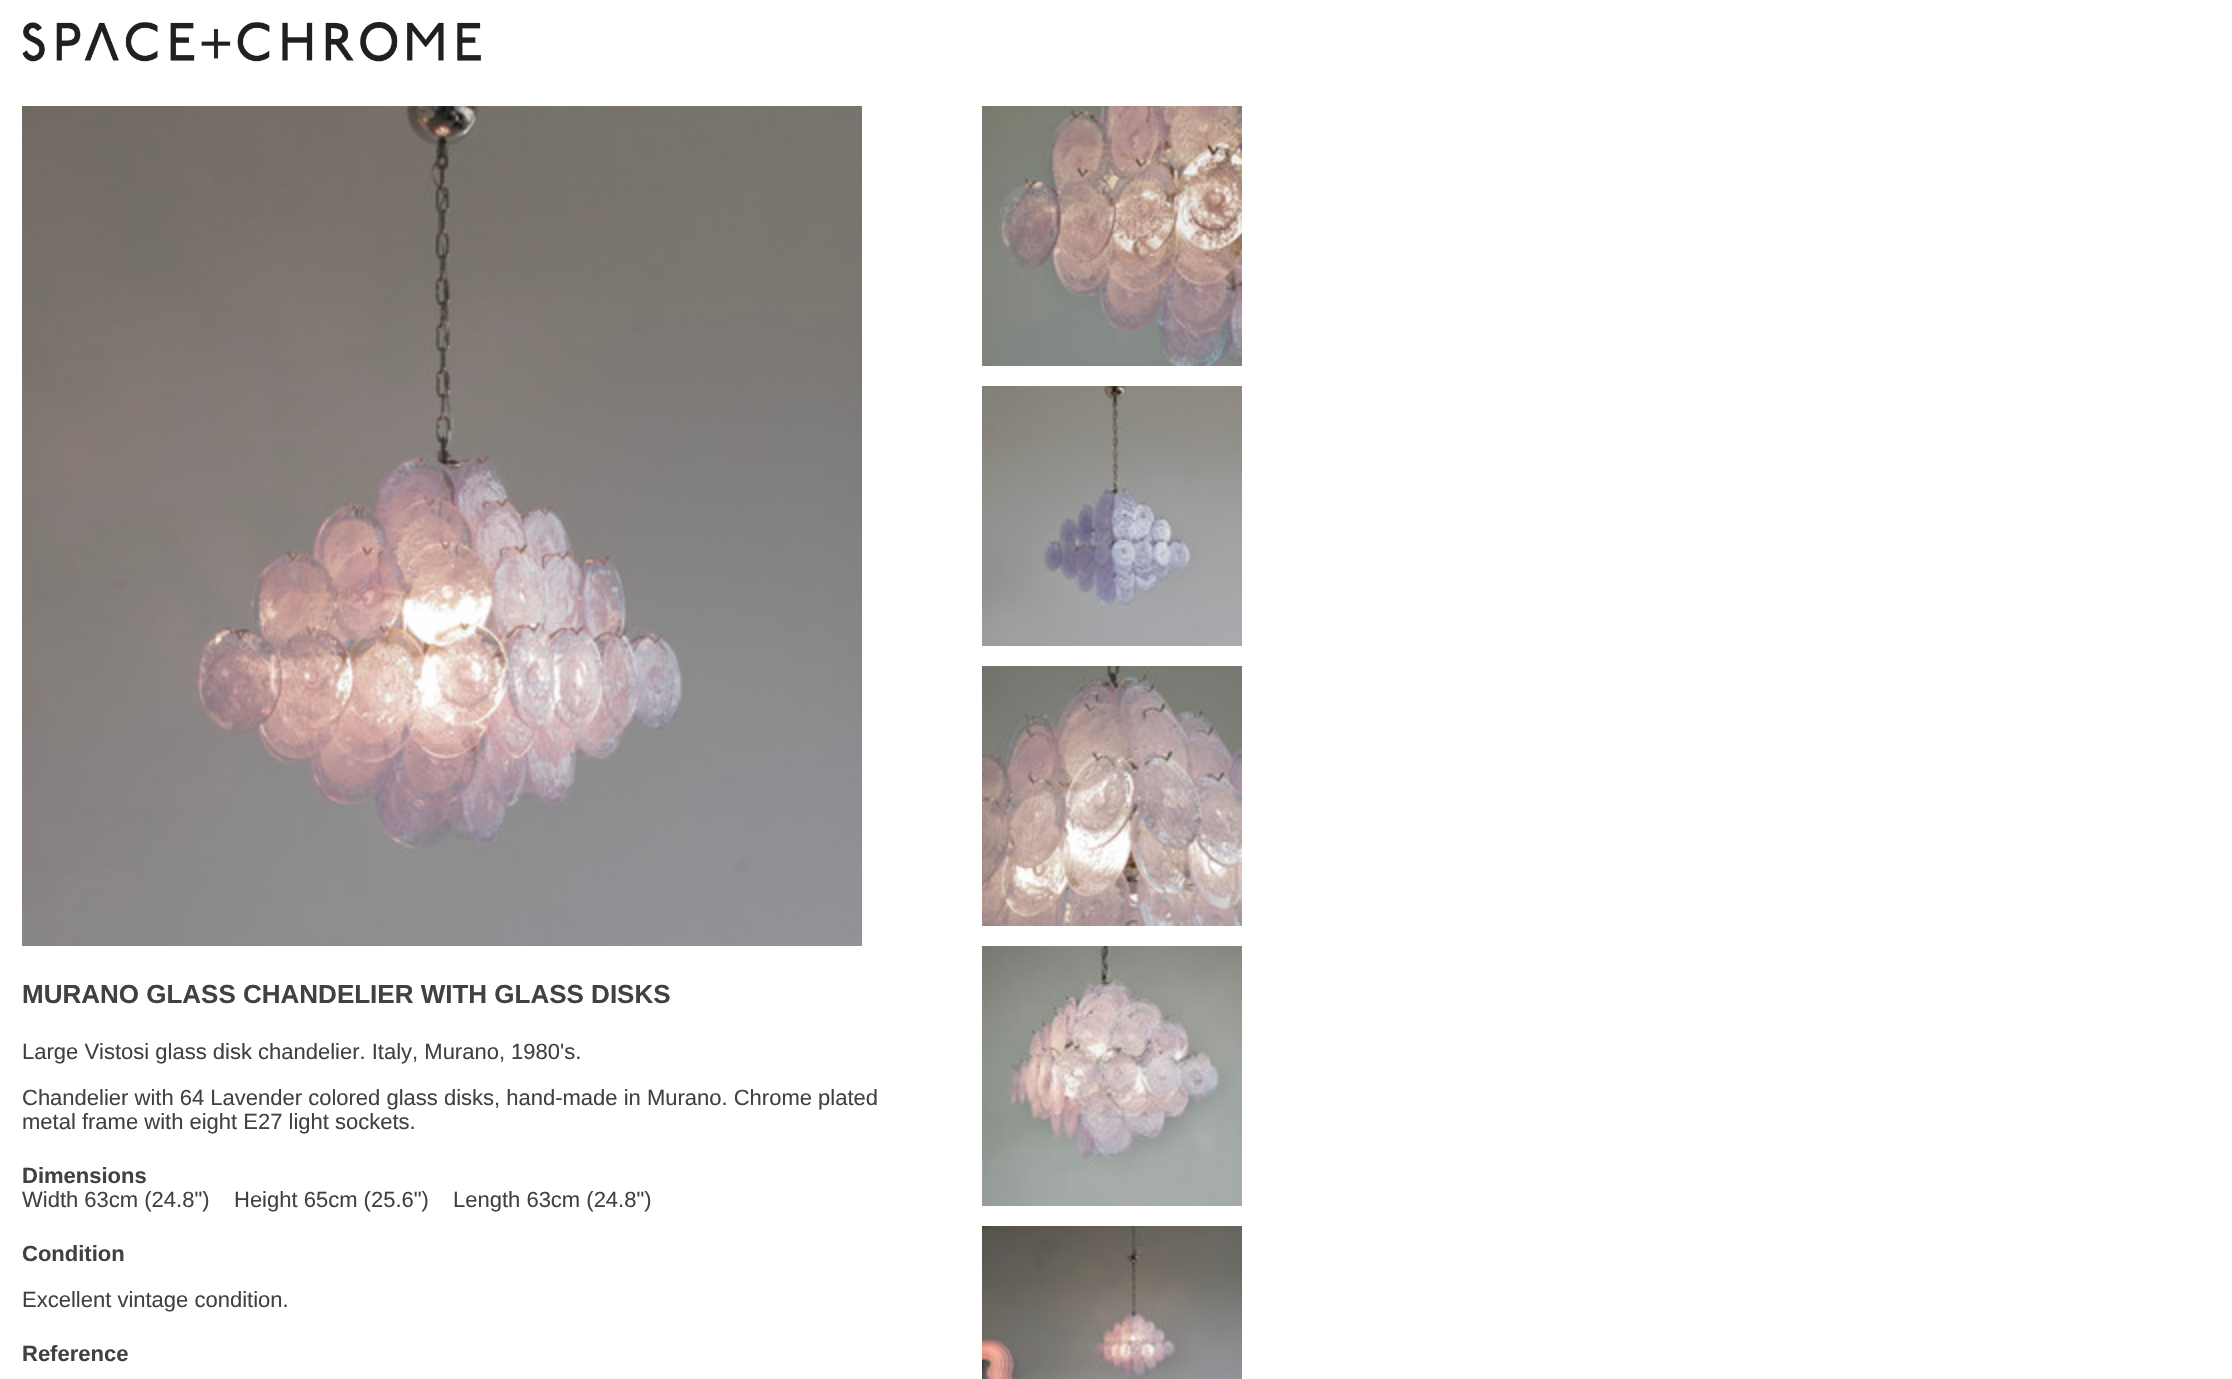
static SkFont makeFont(const char* family, int weight, float size, bool italic = false) {
  SkFontStyle style(weight, SkFontStyle::kNormal_Width,
    italic ? SkFontStyle::kItalic_Slant : SkFontStyle::kUpright_Slant);
  SkFont result(fontMgr->matchFamilyStyle(family, style), size);
  result.setSubpixel(true);
  return result;
}

static void text(SkCanvas* c, const char* s, float x, float y, const SkFont& font, SkColor color) {
  SkPaint ink(SkColor4f::FromColor(color));
  ink.setAntiAlias(true);
  c->drawString(s, x, y, font, ink);
}

static void picture(SkCanvas* c, const char* path, float l, float t, float r, float b) {
  auto image = SkImages::DeferredFromEncodedData(SkData::MakeFromFileName(path));
  c->drawImageRect(image, SkRect::MakeLTRB(l, t, r, b), SkSamplingOptions());
}

void draw(SkCanvas* c) {
  SkPaint paint;
  paint.setAntiAlias(true);
  c->clear(0xffffffff);
  picture(c, "img_01.png", 22, 22, 481, 62);
  picture(c, "img_02.png", 22, 106, 862, 946);
  SkFont face1 = makeFont("Liberation Sans", 700, 26);
  text(c, "MURANO GLASS CHANDELIER WITH GLASS DISKS", 22, 1003, face1, 0xff414141);
  SkFont face2 = makeFont("Liberation Sans", 400, 22);
  text(c, "Large Vistosi glass disk chandelier. Italy, Murano, 1980's.", 22, 1059, face2, 0xff414141);
  text(c, "Chandelier with 64 Lavender colored glass disks, hand-made in Murano. Chrome plated", 22, 1105, face2, 0xff414141);
  text(c, "metal frame with eight E27 light sockets.", 22, 1129, face2, 0xff414141);
  SkFont face3 = makeFont("Liberation Sans", 700, 22);
  text(c, "Dimensions", 22, 1183, face3, 0xff414141);
  text(c, "Width 63cm (24.8\")", 22, 1207, face2, 0xff414141);
  text(c, "Height 65cm (25.6\")", 234, 1207, face2, 0xff414141);
  text(c, "Length 63cm (24.8\")", 453, 1207, face2, 0xff414141);
  text(c, "Condition", 22, 1261, face3, 0xff414141);
  text(c, "Excellent vintage condition.", 22, 1307, face2, 0xff414141);
  text(c, "Reference", 22, 1361, face3, 0xff414141);
  picture(c, "img_03.png", 982, 106, 1242, 366);
  picture(c, "img_04.png", 982, 386, 1242, 646);
  picture(c, "img_05.png", 982, 666, 1242, 926);
  picture(c, "img_06.png", 982, 946, 1242, 1206);
  picture(c, "img_07.png", 982, 1226, 1242, 1379);
}
